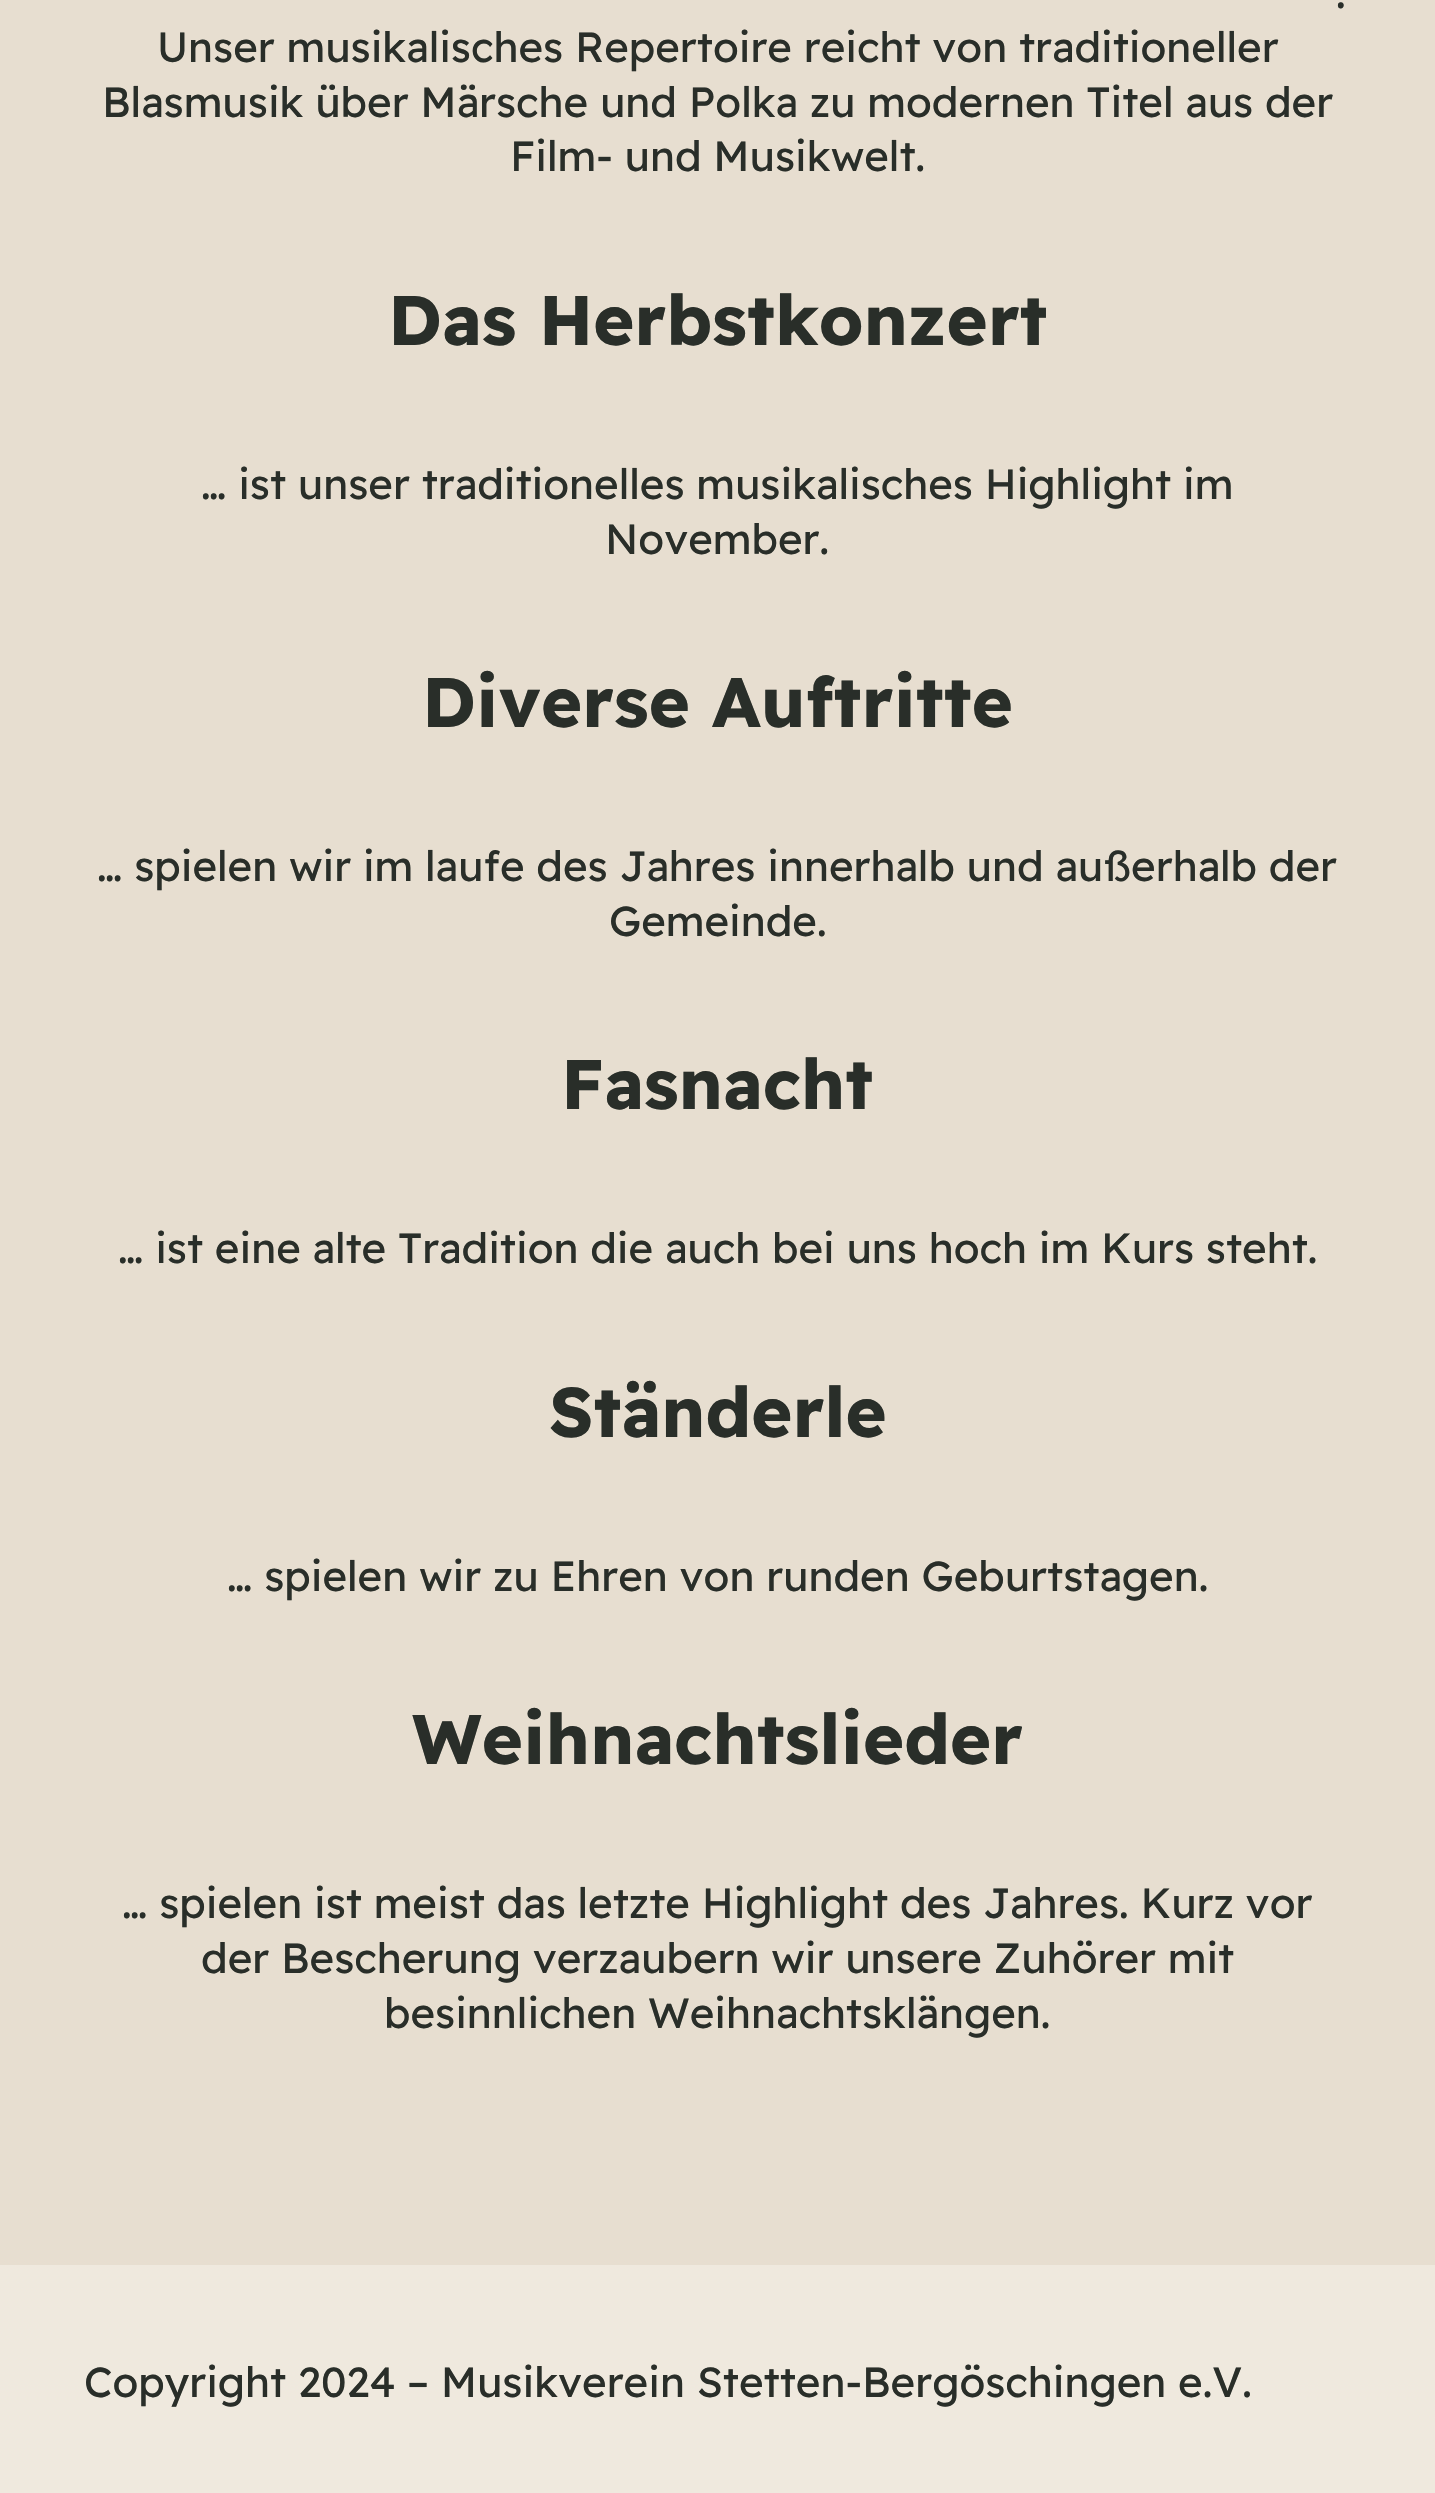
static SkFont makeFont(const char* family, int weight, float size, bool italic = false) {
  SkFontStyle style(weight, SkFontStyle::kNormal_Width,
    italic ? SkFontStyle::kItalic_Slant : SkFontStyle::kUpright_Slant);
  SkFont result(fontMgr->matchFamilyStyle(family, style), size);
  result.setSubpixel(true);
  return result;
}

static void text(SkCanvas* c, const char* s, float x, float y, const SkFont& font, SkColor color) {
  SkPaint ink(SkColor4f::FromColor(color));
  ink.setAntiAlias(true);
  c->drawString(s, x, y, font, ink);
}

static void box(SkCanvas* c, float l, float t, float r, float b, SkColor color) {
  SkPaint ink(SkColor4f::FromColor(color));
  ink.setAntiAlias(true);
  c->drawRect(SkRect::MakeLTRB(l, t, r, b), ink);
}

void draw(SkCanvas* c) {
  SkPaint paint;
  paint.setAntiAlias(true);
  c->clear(0xffe7ded0);
  SkFont face1 = makeFont("Readex Pro", 400, 42);
  text(c, ".", 1336, 8, face1, 0xff292e29);
  text(c, "Unser musikalisches Repertoire reicht von traditioneller", 157, 62, face1, 0xff292e29);
  text(c, "Blasmusik über Märsche und Polka zu modernen Titel aus der", 102, 117, face1, 0xff292e29);
  text(c, "Film- und Musikwelt.", 510, 171, face1, 0xff292e29);
  SkFont face2 = makeFont("Readex Pro", 700, 70);
  text(c, "Das Herbstkonzert", 388, 345, face2, 0xff292e29);
  text(c, "… ist unser traditionelles musikalisches Highlight im", 201, 499, face1, 0xff292e29);
  text(c, "November.", 605, 554, face1, 0xff292e29);
  text(c, "Diverse Auftritte", 422, 727, face2, 0xff292e29);
  text(c, "… spielen wir im laufe des Jahres innerhalb und außerhalb der", 97, 881, face1, 0xff292e29);
  text(c, "Gemeinde.", 609, 936, face1, 0xff292e29);
  text(c, "Fasnacht", 561, 1109, face2, 0xff292e29);
  text(c, "… ist eine alte Tradition die auch bei uns hoch im Kurs steht.", 118, 1263, face1, 0xff292e29);
  text(c, "Ständerle", 549, 1437, face2, 0xff292e29);
  text(c, "… spielen wir zu Ehren von runden Geburtstagen.", 227, 1591, face1, 0xff292e29);
  text(c, "Weihnachtslieder", 412, 1764, face2, 0xff292e29);
  text(c, "… spielen ist meist das letzte Highlight des Jahres. Kurz vor", 122, 1918, face1, 0xff292e29);
  text(c, "der Bescherung verzaubern wir unsere Zuhörer mit", 201, 1973, face1, 0xff292e29);
  text(c, "besinnlichen Weihnachtsklängen.", 384, 2028, face1, 0xff292e29);
  box(c, 0, 2265, 1435, 2493, 0xffefe9de);
  text(c, "Copyright 2024 – Musikverein Stetten-Bergöschingen e.V.", 84, 2397, face1, 0xff292e29);
}
